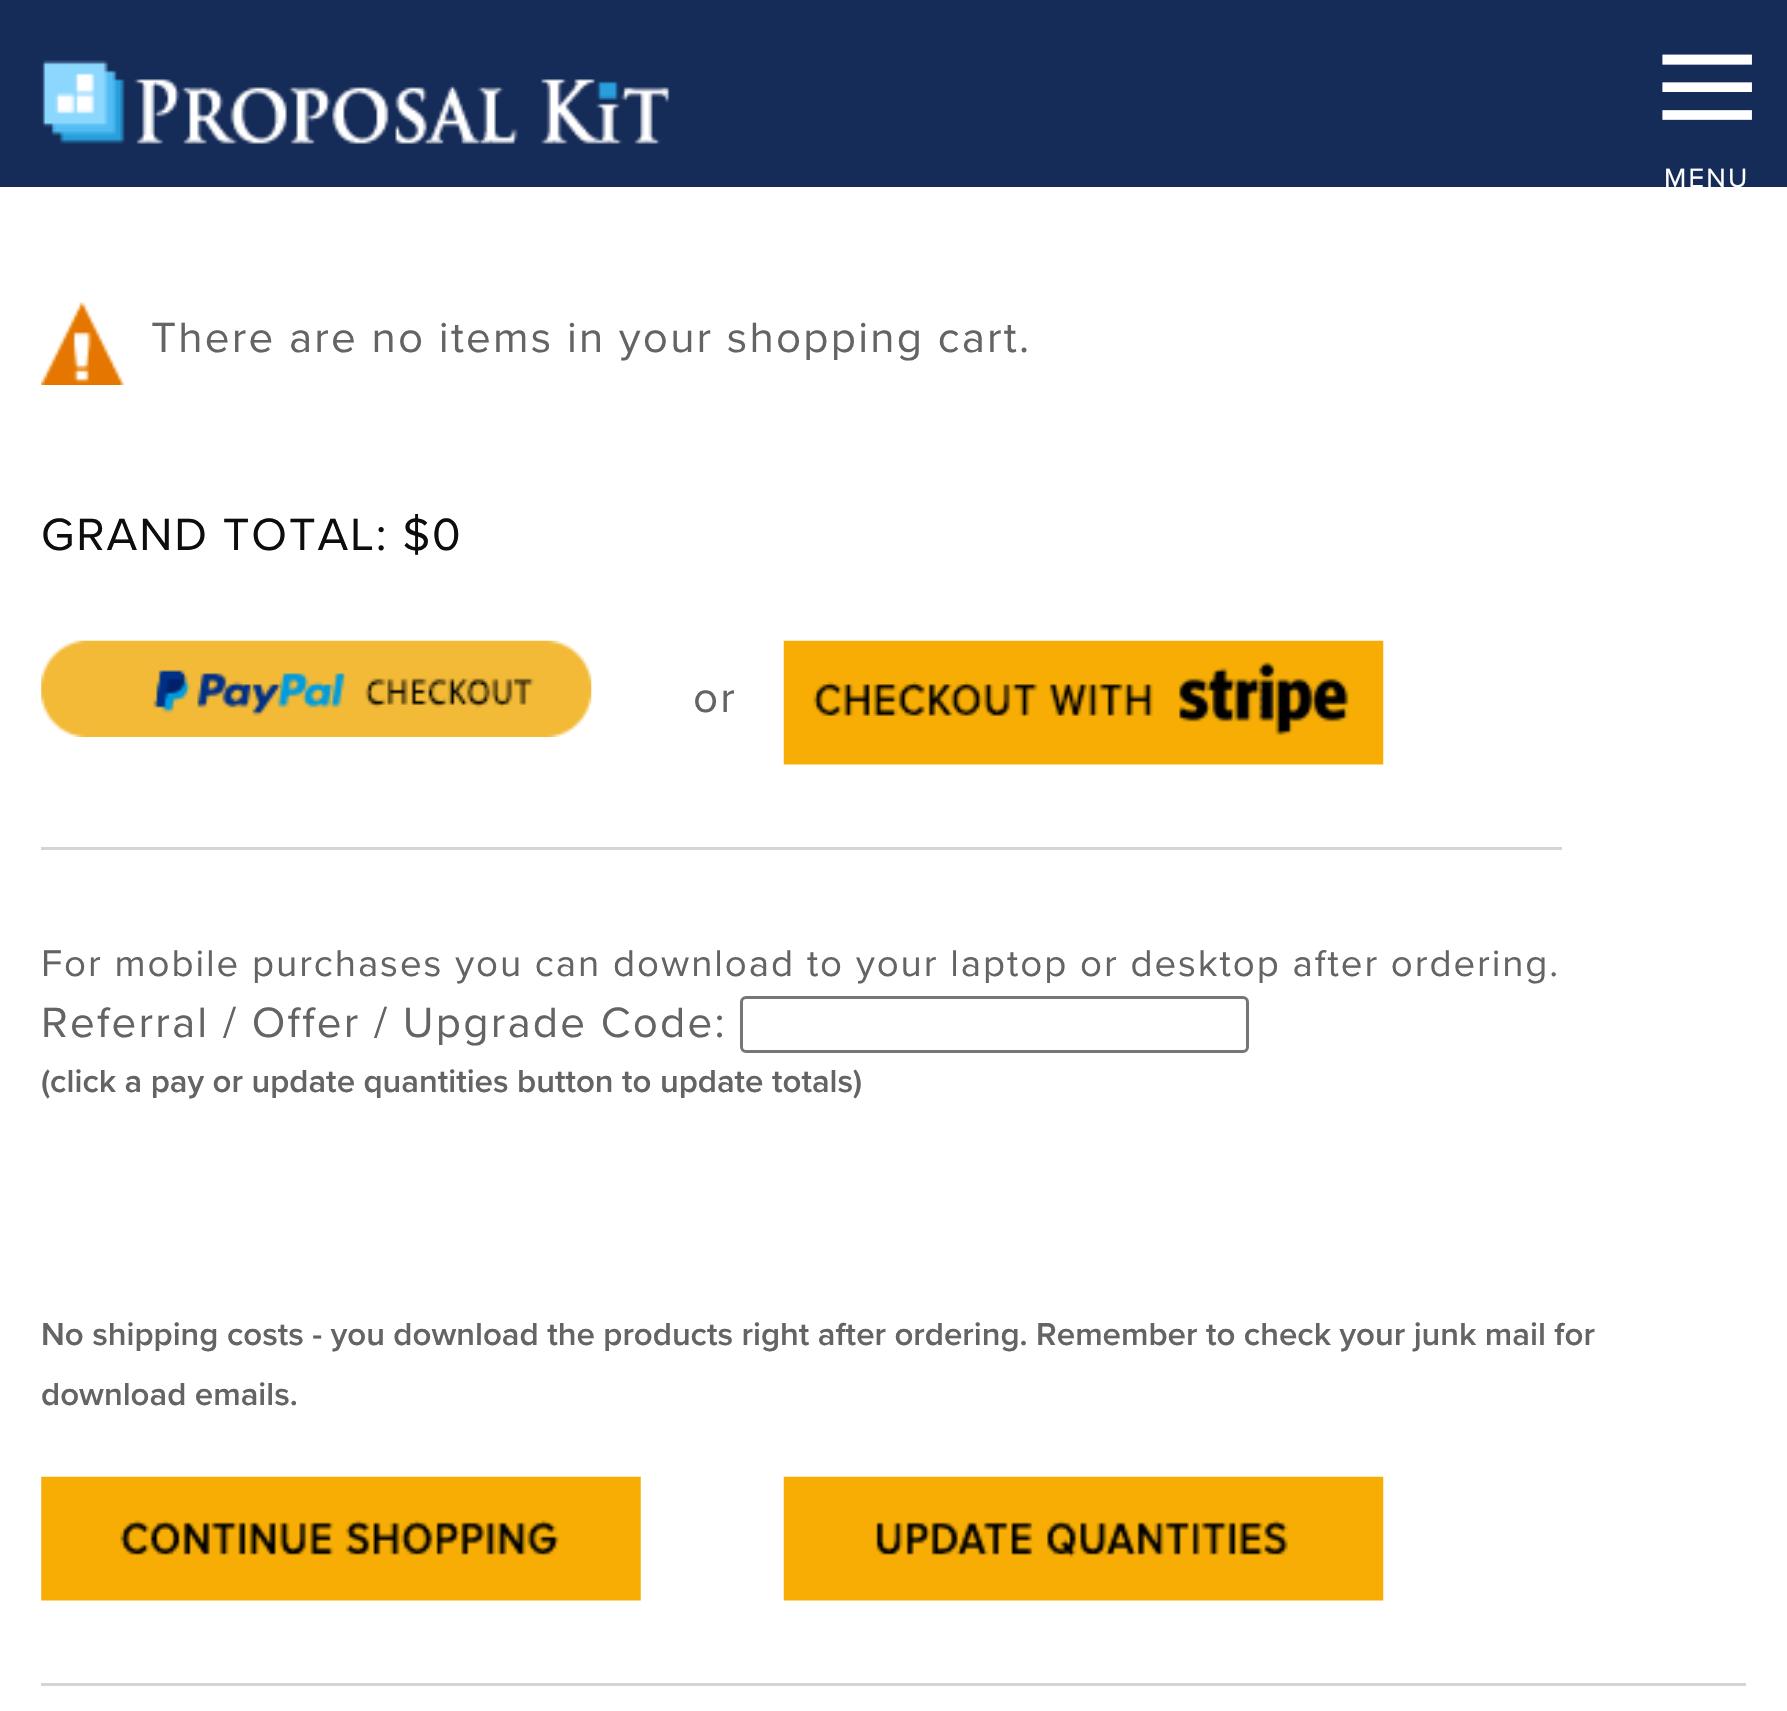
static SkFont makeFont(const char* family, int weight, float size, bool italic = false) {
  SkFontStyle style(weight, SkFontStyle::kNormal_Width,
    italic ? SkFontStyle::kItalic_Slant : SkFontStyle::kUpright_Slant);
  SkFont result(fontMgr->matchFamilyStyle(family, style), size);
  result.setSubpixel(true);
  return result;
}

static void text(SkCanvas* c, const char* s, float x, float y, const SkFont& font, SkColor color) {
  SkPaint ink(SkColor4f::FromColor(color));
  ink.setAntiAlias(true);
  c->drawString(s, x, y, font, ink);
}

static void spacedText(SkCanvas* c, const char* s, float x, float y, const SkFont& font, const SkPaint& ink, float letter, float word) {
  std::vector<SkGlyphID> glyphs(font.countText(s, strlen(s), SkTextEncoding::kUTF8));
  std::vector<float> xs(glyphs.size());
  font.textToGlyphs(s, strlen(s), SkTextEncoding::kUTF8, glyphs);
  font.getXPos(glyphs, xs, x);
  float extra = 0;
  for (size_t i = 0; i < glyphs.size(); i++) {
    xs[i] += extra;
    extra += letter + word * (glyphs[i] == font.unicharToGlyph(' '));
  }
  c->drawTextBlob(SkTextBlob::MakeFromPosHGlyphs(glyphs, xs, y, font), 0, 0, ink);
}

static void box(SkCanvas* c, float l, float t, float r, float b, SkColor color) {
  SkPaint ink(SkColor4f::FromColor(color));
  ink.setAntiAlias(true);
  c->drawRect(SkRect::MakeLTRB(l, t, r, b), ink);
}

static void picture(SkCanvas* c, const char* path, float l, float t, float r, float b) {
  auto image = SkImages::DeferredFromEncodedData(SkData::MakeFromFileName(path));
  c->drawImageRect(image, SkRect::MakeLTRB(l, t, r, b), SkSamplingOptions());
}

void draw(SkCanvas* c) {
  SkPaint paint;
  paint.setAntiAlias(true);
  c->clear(0xffffffff);
  box(c, 0, 0, 1787, 187, 0xff152b58);
  SkFont face1 = makeFont("Liberation Serif", 400, 192);
  paint.setColor(0xffffffff);
  spacedText(c, "≡", 1653, 151, face1, paint, 2.2f, 0);
  SkFont face2 = makeFont("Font", 400, 27.5f);
  spacedText(c, "MENU", 1664, 187, face2, paint, 2.2f, 0);
  picture(c, "img_01.png", 41, 60, 670, 144);
  picture(c, "img_02.png", 41, 302, 124, 385);
  SkFont face3 = makeFont("Font", 400, 44);
  paint.setColor(0xff646464);
  spacedText(c, "There are no items in your shopping cart.", 151, 352, face3, paint, 2.2f, 0);
  SkFont face4 = makeFont("Font", 400, 46.75f);
  paint.setColor(0xff0d0d0d);
  spacedText(c, "GRAND TOTAL: $0", 41, 550, face4, paint, 1.9f, 0);
  picture(c, "img_03.png", 41, 640, 592, 737);
  paint.setColor(0xff646464);
  spacedText(c, "or", 693, 712, face3, paint, 2.2f, 0);
  picture(c, "img_04.png", 783, 640, 1384, 765);
  box(c, 41, 847, 1562, 850, 0xffd5d5d5);
  SkFont face5 = makeFont("Font", 400, 38.5f);
  spacedText(c, "For mobile purchases you can download to your laptop or desktop after ordering.", 41, 976, face5, paint, 1.92f, 0);
  spacedText(c, "Referral / Offer / Upgrade Code:", 41, 1037, face3, paint, 2.2f, 0);
  paint.setStyle(SkPaint::kStroke_Style);
  paint.setStrokeWidth(3);
  paint.setColor(0xff767676);
  c->drawRoundRect(SkRect::MakeLTRB(741.5f, 997.5f, 1247.5f, 1051.5f), 4.5f, 4.5f, paint);
  SkFont face6 = makeFont("Proxima Nova", 600, 33);
  text(c, "(click a pay or update quantities button to update totals)", 41, 1092, face6, 0xff646464);
  text(c, "No shipping costs - you download the products right after ordering. Remember to check your junk mail for", 41, 1345, face6, 0xff646464);
  text(c, "download emails.", 41, 1405, face6, 0xff646464);
  picture(c, "img_05.png", 41, 1476, 641, 1601);
  picture(c, "img_06.png", 783, 1476, 1384, 1601);
  box(c, 41, 1683, 1746, 1686, 0xffd5d5d5);
}
